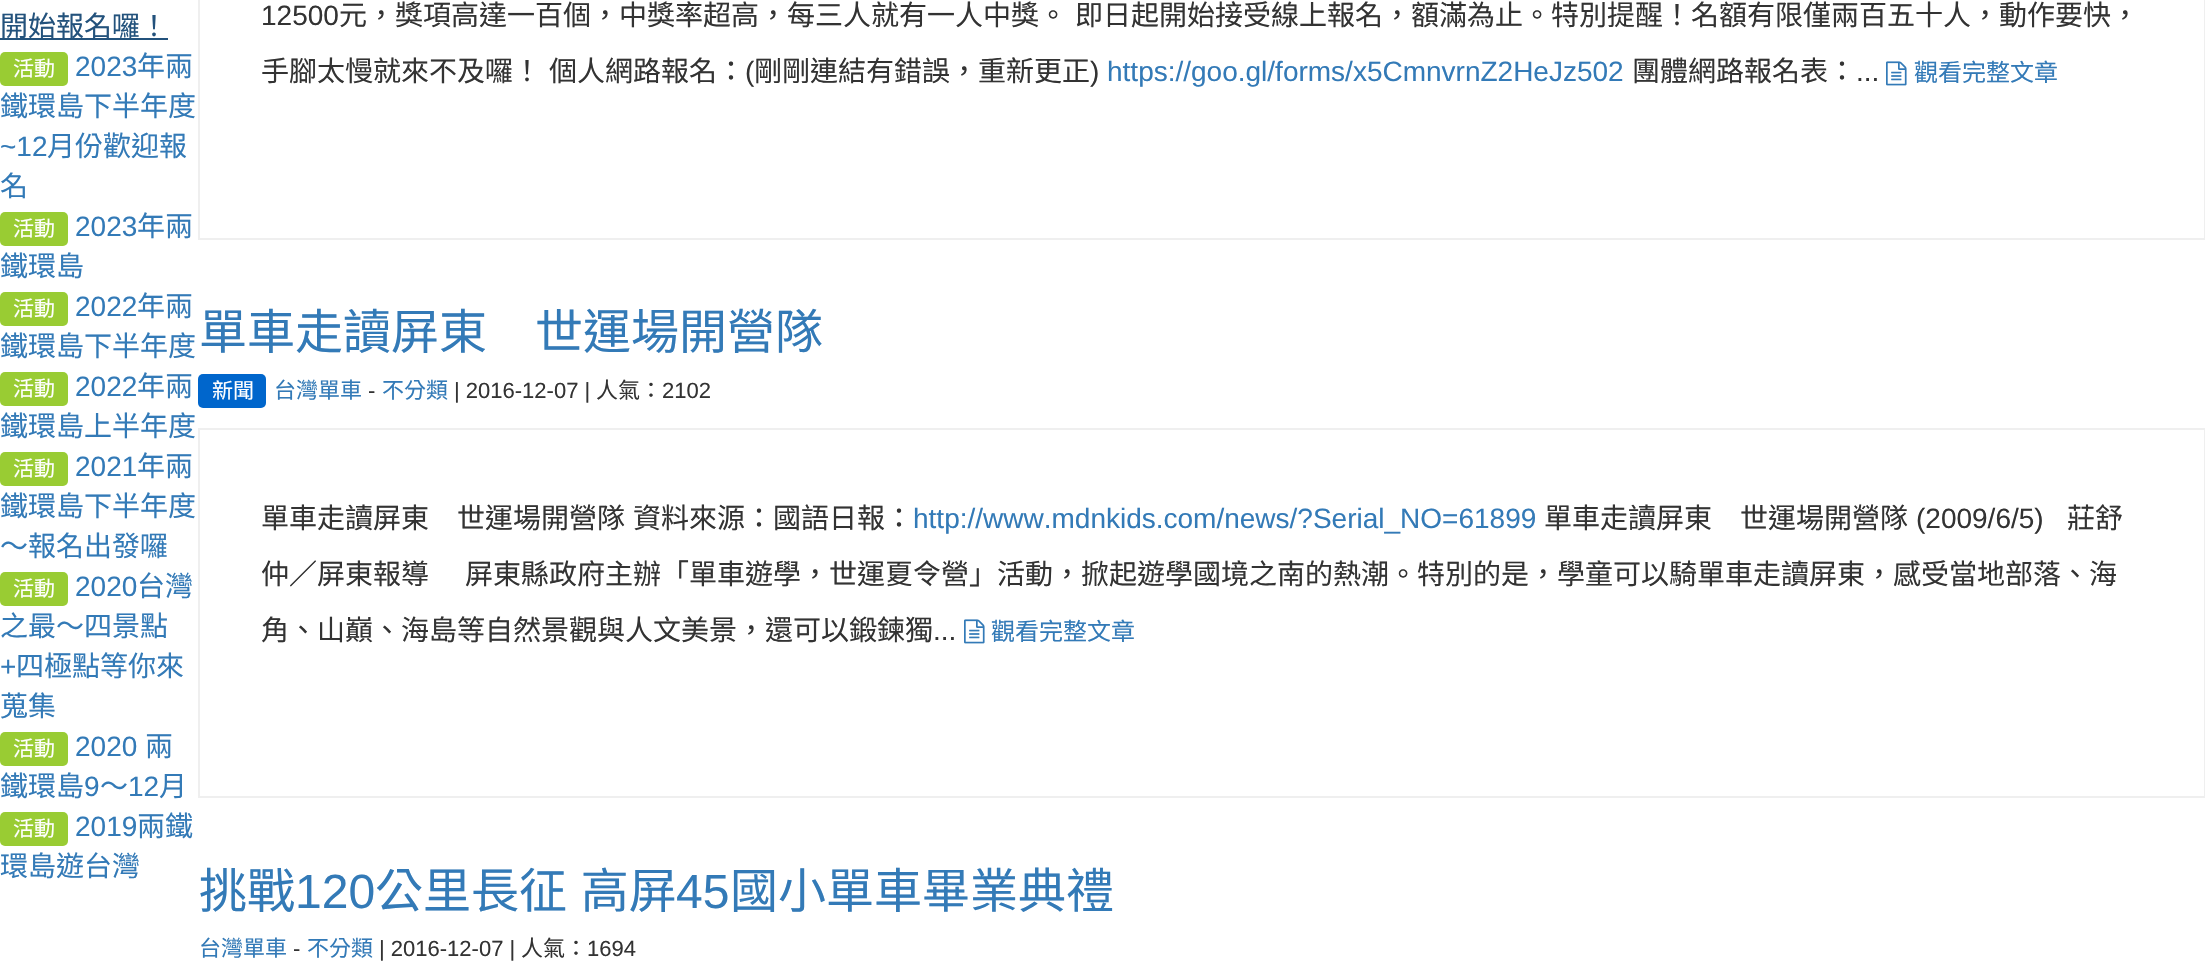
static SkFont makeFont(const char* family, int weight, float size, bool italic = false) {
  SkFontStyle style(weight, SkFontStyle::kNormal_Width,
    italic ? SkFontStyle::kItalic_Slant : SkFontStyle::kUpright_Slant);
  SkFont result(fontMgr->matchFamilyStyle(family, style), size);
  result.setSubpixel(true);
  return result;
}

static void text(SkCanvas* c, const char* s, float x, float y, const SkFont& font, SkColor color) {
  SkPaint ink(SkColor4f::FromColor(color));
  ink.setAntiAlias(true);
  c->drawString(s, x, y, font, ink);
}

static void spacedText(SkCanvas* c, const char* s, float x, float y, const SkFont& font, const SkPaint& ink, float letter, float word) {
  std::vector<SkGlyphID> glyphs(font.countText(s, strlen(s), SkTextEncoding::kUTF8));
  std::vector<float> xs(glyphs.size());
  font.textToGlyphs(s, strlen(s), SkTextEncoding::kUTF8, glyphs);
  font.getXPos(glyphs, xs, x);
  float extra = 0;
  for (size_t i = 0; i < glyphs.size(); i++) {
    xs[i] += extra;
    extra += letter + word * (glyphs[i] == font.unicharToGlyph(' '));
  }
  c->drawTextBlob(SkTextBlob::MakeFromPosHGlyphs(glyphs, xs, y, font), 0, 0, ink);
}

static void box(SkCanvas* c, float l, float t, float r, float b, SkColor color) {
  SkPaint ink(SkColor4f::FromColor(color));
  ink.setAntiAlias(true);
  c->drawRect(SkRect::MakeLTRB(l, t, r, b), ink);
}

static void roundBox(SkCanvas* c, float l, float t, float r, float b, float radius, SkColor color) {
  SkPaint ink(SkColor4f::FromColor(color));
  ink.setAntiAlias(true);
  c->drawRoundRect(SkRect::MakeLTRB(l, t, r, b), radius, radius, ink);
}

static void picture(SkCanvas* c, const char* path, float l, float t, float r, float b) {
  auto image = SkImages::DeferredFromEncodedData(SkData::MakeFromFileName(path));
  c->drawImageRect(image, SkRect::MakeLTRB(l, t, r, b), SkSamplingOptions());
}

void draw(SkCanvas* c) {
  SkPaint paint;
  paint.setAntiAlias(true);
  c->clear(0xffffffff);
  box(c, 0, 38, 168, 40, 0xff23527c);
  SkFont face1 = makeFont("Noto Sans CJK TC", 400, 28);
  text(c, "開始報名囉！", 0, 36, face1, 0xff23527c);
  roundBox(c, 0, 52, 68, 86, 5, 0xff99cc33);
  SkFont face2 = makeFont("Noto Sans CJK TC", 400, 21);
  text(c, "活動", 13, 76, face2, 0xffffffff);
  SkFont face3 = makeFont("Liberation Sans", 400, 28);
  text(c, "2023", 75, 76, face3, 0xff337ab7);
  text(c, "年兩", 137, 76, face1, 0xff337ab7);
  text(c, "鐵環島下半年度", 0, 116, face1, 0xff337ab7);
  text(c, "~12", 0, 156, face3, 0xff337ab7);
  text(c, "月份歡迎報", 47, 156, face1, 0xff337ab7);
  text(c, "名", 0, 196, face1, 0xff337ab7);
  roundBox(c, 0, 212, 68, 246, 5, 0xff99cc33);
  text(c, "活動", 13, 236, face2, 0xffffffff);
  text(c, "2023", 75, 236, face3, 0xff337ab7);
  text(c, "年兩", 137, 236, face1, 0xff337ab7);
  text(c, "鐵環島", 0, 276, face1, 0xff337ab7);
  roundBox(c, 0, 292, 68, 326, 5, 0xff99cc33);
  text(c, "活動", 13, 316, face2, 0xffffffff);
  text(c, "2022", 75, 316, face3, 0xff337ab7);
  text(c, "年兩", 137, 316, face1, 0xff337ab7);
  text(c, "鐵環島下半年度", 0, 356, face1, 0xff337ab7);
  roundBox(c, 0, 372, 68, 406, 5, 0xff99cc33);
  text(c, "活動", 13, 396, face2, 0xffffffff);
  text(c, "2022", 75, 396, face3, 0xff337ab7);
  text(c, "年兩", 137, 396, face1, 0xff337ab7);
  text(c, "鐵環島上半年度", 0, 436, face1, 0xff337ab7);
  roundBox(c, 0, 452, 68, 486, 5, 0xff99cc33);
  text(c, "活動", 13, 476, face2, 0xffffffff);
  text(c, "2021", 75, 476, face3, 0xff337ab7);
  text(c, "年兩", 137, 476, face1, 0xff337ab7);
  text(c, "鐵環島下半年度", 0, 516, face1, 0xff337ab7);
  text(c, "～報名出發囉", 0, 556, face1, 0xff337ab7);
  roundBox(c, 0, 572, 68, 606, 5, 0xff99cc33);
  text(c, "活動", 13, 596, face2, 0xffffffff);
  text(c, "2020", 75, 596, face3, 0xff337ab7);
  text(c, "台灣", 137, 596, face1, 0xff337ab7);
  text(c, "之最～四景點", 0, 636, face1, 0xff337ab7);
  text(c, "+", 0, 676, face3, 0xff337ab7);
  text(c, "四極點等你來", 16, 676, face1, 0xff337ab7);
  text(c, "蒐集", 0, 716, face1, 0xff337ab7);
  roundBox(c, 0, 732, 68, 766, 5, 0xff99cc33);
  text(c, "活動", 13, 756, face2, 0xffffffff);
  text(c, "2020", 75, 756, face3, 0xff337ab7);
  text(c, "兩", 145, 756, face1, 0xff337ab7);
  text(c, "鐵環島", 0, 796, face1, 0xff337ab7);
  text(c, "9", 84, 796, face3, 0xff337ab7);
  text(c, "～", 100, 796, face1, 0xff337ab7);
  text(c, "12", 128, 796, face3, 0xff337ab7);
  text(c, "月", 159, 796, face1, 0xff337ab7);
  roundBox(c, 0, 812, 68, 846, 5, 0xff99cc33);
  text(c, "活動", 13, 836, face2, 0xffffffff);
  text(c, "2019", 75, 836, face3, 0xff337ab7);
  text(c, "兩鐵", 137, 836, face1, 0xff337ab7);
  text(c, "環島遊台灣", 0, 876, face1, 0xff337ab7);
  paint.setStyle(SkPaint::kStroke_Style);
  paint.setStrokeWidth(2);
  paint.setColor(0xffefefef);
  c->drawRect(SkRect::MakeLTRB(199, -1, 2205, 239), paint);
  text(c, "12500", 261, 25, face3, 0xff333333);
  text(c, "元，獎項高達一百個，中獎率超高，每三人就有一人中獎。", 339, 25, face1, 0xff333333);
  text(c, "即日起開始接受線上報名，額滿為止。特別提醒！名額有限僅兩百五十人，動作要快，", 1075, 25, face1, 0xff333333);
  text(c, "手腳太慢就來不及囉！", 261, 81, face1, 0xff333333);
  text(c, "個人網路報名：", 549, 81, face1, 0xff333333);
  text(c, "(", 745, 81, face3, 0xff333333);
  text(c, "剛剛連結有錯誤，重新更正", 754, 81, face1, 0xff333333);
  text(c, ")", 1090, 81, face3, 0xff333333);
  text(c, "https://goo.gl/forms/x5CmnvrnZ2HeJz502", 1107, 81, face3, 0xff337ab7);
  text(c, "團體網路報名表：", 1632, 81, face1, 0xff333333);
  text(c, "...", 1856, 81, face3, 0xff333333);
  picture(c, "img_01.png", 1886, 61, 1907, 86);
  SkFont face4 = makeFont("Noto Sans CJK TC", 400, 24);
  text(c, "觀看完整文章", 1914, 81, face4, 0xff337ab7);
  SkFont face5 = makeFont("Noto Sans CJK TC", 400, 48);
  text(c, "單車走讀屏東　世運場開營隊", 199, 349, face5, 0xff337ab7);
  roundBox(c, 198, 374, 266, 408, 5, 0xff0066cc);
  text(c, "新聞", 212, 398, face2, 0xffffffff);
  SkFont face6 = makeFont("Noto Sans CJK TC", 400, 22);
  text(c, "台灣單車", 274, 398, face6, 0xff337ab7);
  SkFont face7 = makeFont("Liberation Sans", 400, 22);
  text(c, "-", 368, 398, face7, 0xff333333);
  text(c, "不分類", 382, 398, face6, 0xff337ab7);
  text(c, "| 2016-12-07 |", 454, 398, face7, 0xff333333);
  text(c, "人氣：", 596, 398, face6, 0xff333333);
  text(c, "2102", 662, 398, face7, 0xff333333);
  c->drawRect(SkRect::MakeLTRB(199, 429, 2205, 797), paint);
  text(c, "單車走讀屏東　世運場開營隊", 261, 528, face1, 0xff333333);
  text(c, "資料來源：國語日報：", 633, 528, face1, 0xff333333);
  text(c, "http://www.mdnkids.com/news/?Serial_NO=61899", 913, 528, face3, 0xff337ab7);
  text(c, "單車走讀屏東　世運場開營隊", 1544, 528, face1, 0xff333333);
  text(c, "(2009/6/5)", 1916, 528, face3, 0xff333333);
  text(c, "莊舒", 2067, 528, face1, 0xff333333);
  text(c, "仲／屏東報導", 261, 584, face1, 0xff333333);
  text(c, "屏東縣政府主辦「單車遊學，世運夏令營」活動，掀起遊學國境之南的熱潮。特別的是，學童可以騎單車走讀屏東，感受當地部落、海", 465, 584, face1, 0xff333333);
  text(c, "角、山巔、海島等自然景觀與人文美景，還可以鍛鍊獨", 261, 640, face1, 0xff333333);
  text(c, "...", 933, 640, face3, 0xff333333);
  picture(c, "img_01.png", 964, 619, 985, 644);
  text(c, "觀看完整文章", 991, 640, face4, 0xff337ab7);
  text(c, "挑戰", 199, 908, face5, 0xff337ab7);
  SkFont face8 = makeFont("Liberation Sans", 400, 48);
  text(c, "120", 295, 908, face8, 0xff337ab7);
  paint.setStyle(SkPaint::kFill_Style);
  paint.setColor(0xff337ab7);
  spacedText(c, "公里長征 高屏", 375, 908, face5, paint, 0, 3);
  text(c, "45", 676, 908, face8, 0xff337ab7);
  text(c, "國小單車畢業典禮", 730, 908, face5, 0xff337ab7);
  text(c, "台灣單車", 199, 956, face6, 0xff337ab7);
  text(c, "-", 293, 956, face7, 0xff333333);
  text(c, "不分類", 307, 956, face6, 0xff337ab7);
  text(c, "| 2016-12-07 |", 379, 956, face7, 0xff333333);
  text(c, "人氣：", 521, 956, face6, 0xff333333);
  text(c, "1694", 587, 956, face7, 0xff333333);
}
